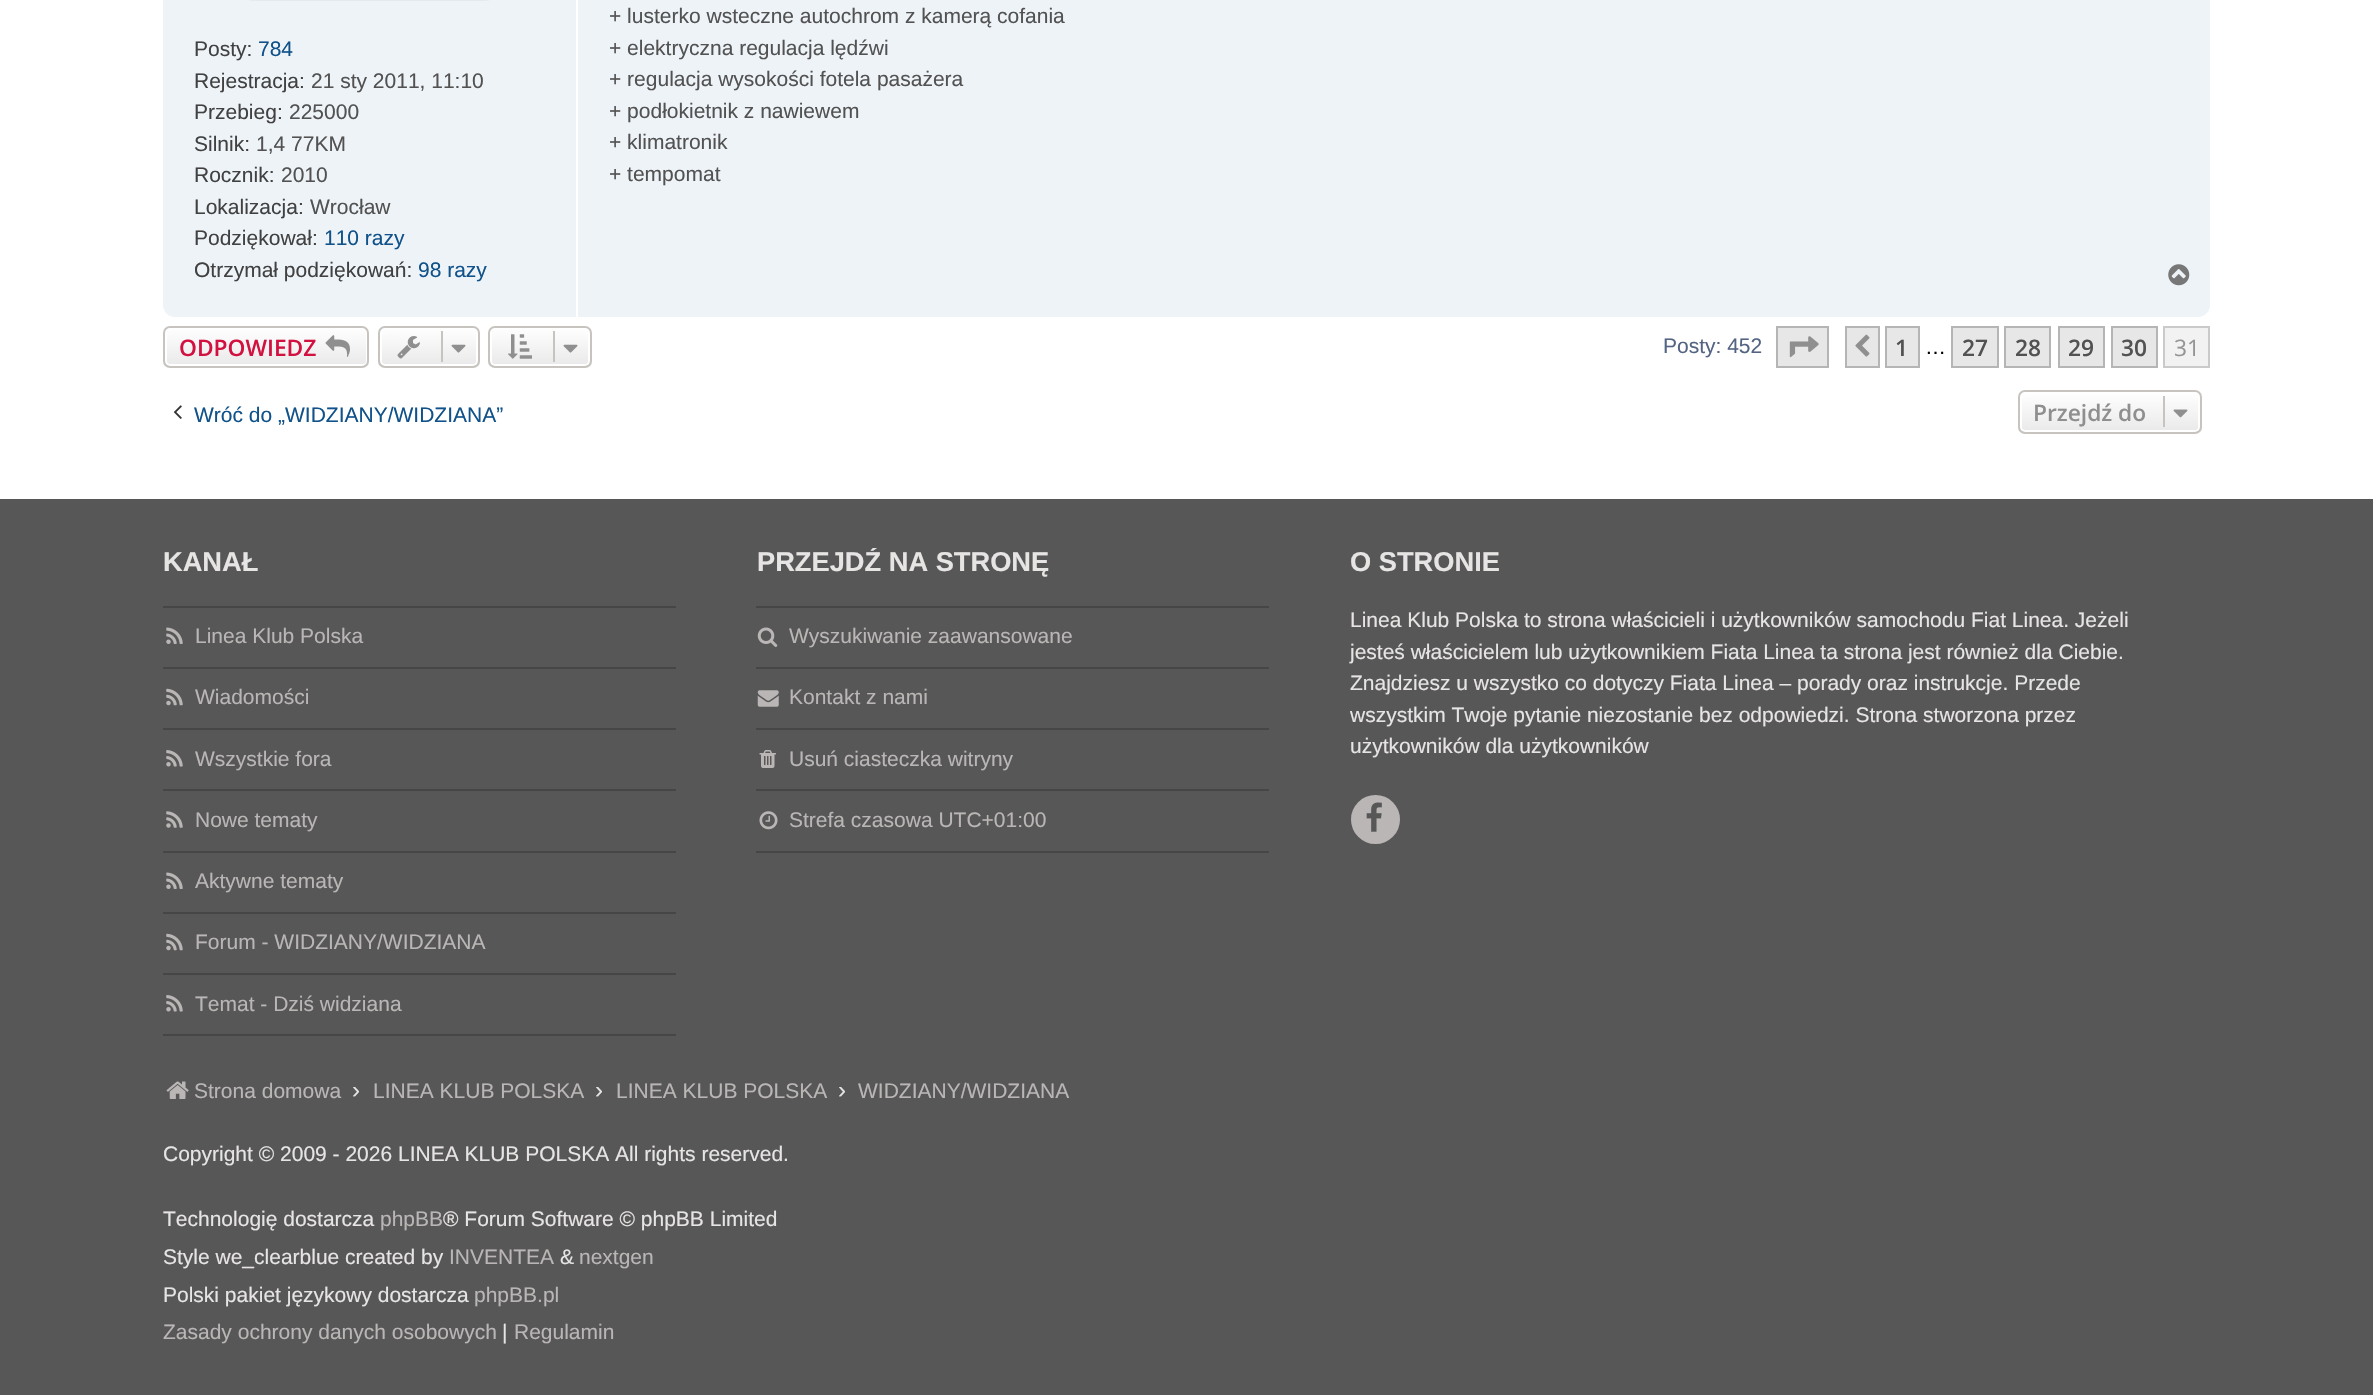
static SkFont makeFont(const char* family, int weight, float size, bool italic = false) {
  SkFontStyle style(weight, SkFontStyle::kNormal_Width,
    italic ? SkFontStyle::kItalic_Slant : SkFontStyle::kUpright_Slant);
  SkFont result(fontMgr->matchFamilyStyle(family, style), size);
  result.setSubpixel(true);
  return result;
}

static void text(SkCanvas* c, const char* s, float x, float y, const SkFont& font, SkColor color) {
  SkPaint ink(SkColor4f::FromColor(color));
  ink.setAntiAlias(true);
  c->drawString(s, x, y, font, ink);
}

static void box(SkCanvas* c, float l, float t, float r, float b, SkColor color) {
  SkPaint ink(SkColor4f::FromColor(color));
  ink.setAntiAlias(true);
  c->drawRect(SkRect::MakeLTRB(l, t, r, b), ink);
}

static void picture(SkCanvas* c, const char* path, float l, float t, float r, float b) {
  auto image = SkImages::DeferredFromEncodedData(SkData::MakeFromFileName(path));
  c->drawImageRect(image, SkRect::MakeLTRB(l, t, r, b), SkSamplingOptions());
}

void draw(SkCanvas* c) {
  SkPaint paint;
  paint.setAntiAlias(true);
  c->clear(0xffffffff);
  paint.setColor(0xffeef3f8);
  c->drawPath(SkPathBuilder().moveTo(175, -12).lineTo(578, -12).lineTo(578, 317).lineTo(175, 317).cubicTo(168.5f, 317, 163, 311.5f, 163, 305).lineTo(163, 0).cubicTo(163, -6.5f, 168.5f, -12, 175, -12).close().detach(), paint);
  box(c, 576, 0, 578, 317, 0xffffffff);
  picture(c, "img_01.png", 249, 0, 489, 1);
  SkFont face1 = makeFont("Liberation Sans", 400, 21);
  text(c, "Posty:", 194, 56, face1, 0xff414141);
  text(c, "784", 258, 56, face1, 0xff105289);
  text(c, "Rejestracja:", 194, 88, face1, 0xff414141);
  text(c, "21 sty 2011, 11:10", 311, 88, face1, 0xff525252);
  text(c, "Przebieg:", 194, 119, face1, 0xff414141);
  text(c, "225000", 289, 119, face1, 0xff525252);
  text(c, "Silnik:", 194, 151, face1, 0xff414141);
  text(c, "1,4 77KM", 256, 151, face1, 0xff525252);
  text(c, "Rocznik:", 194, 182, face1, 0xff414141);
  text(c, "2010", 281, 182, face1, 0xff525252);
  text(c, "Lokalizacja:", 194, 214, face1, 0xff414141);
  text(c, "Wrocław", 310, 214, face1, 0xff525252);
  text(c, "Podziękował:", 194, 245, face1, 0xff414141);
  text(c, "110 razy", 324, 245, face1, 0xff105289);
  text(c, "Otrzymał podziękowań:", 194, 277, face1, 0xff414141);
  text(c, "98 razy", 418, 277, face1, 0xff105289);
  c->drawPath(SkPathBuilder().moveTo(578, -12).lineTo(2198, -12).cubicTo(2204.5f, -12, 2210, -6.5f, 2210, 0).lineTo(2210, 305).cubicTo(2210, 311.5f, 2204.5f, 317, 2198, 317).lineTo(578, 317).close().detach(), paint);
  text(c, "+ lusterko wsteczne autochrom z kamerą cofania", 609, 23, face1, 0xff525252);
  text(c, "+ elektryczna regulacja lędźwi", 609, 55, face1, 0xff525252);
  text(c, "+ regulacja wysokości fotela pasażera", 609, 86, face1, 0xff525252);
  text(c, "+ podłokietnik z nawiewem", 609, 118, face1, 0xff525252);
  text(c, "+ klimatronik", 609, 149, face1, 0xff525252);
  text(c, "+ tempomat", 609, 181, face1, 0xff525252);
  picture(c, "img_02.png", 2168, 264, 2190, 286);
  c->save();
  c->clipPath(SkPathBuilder().moveTo(170, 326).lineTo(362, 326).cubicTo(366, 326, 369, 329, 369, 333).lineTo(369, 361).cubicTo(369, 365, 366, 368, 362, 368).lineTo(170, 368).cubicTo(166, 368, 163, 365, 163, 361).lineTo(163, 333).cubicTo(163, 329, 166, 326, 170, 326).close().detach(), true);
  {
    const SkColor colors[] = {0xffffffff, 0xffe9e9e9};
    const float stops[] = {0, 1};
    const SkPoint ends[] = {{266, 327}, {266, 366}};
    paint.setShader(SkGradientShader::MakeLinear(ends, colors, stops, 2, SkTileMode::kClamp));
    paint.setAlpha(255);
  }
  c->drawRect(SkRect::MakeLTRB(163, 327, 369, 366), paint);
  c->restore();
  paint.setStyle(SkPaint::kStroke_Style);
  paint.setStrokeWidth(2);
  paint.setShader(nullptr);
  paint.setColor(0xffffffff);
  c->drawRoundRect(SkRect::MakeLTRB(166, 328, 367, 365), 4, 4, paint);
  paint.setColor(0xffc7c3bf);
  c->drawRoundRect(SkRect::MakeLTRB(164, 327, 368, 367), 6, 6, paint);
  SkFont face2 = makeFont("Open Sans", 600, 22.75f);
  text(c, "ODPOWIEDZ", 179, 356, face2, 0xffd31141);
  picture(c, "img_03.png", 325, 335, 350, 357);
  c->save();
  c->clipPath(SkPathBuilder().moveTo(385, 326).lineTo(473, 326).cubicTo(477, 326, 480, 329, 480, 333).lineTo(480, 361).cubicTo(480, 365, 477, 368, 473, 368).lineTo(385, 368).cubicTo(381, 368, 378, 365, 378, 361).lineTo(378, 333).cubicTo(378, 329, 381, 326, 385, 326).close().detach(), true);
  paint.setStyle(SkPaint::kFill_Style);
  {
    const SkColor colors[] = {0xffffffff, 0xffe9e9e9};
    const float stops[] = {0, 1};
    const SkPoint ends[] = {{429, 327}, {429, 366}};
    paint.setShader(SkGradientShader::MakeLinear(ends, colors, stops, 2, SkTileMode::kClamp));
    paint.setAlpha(255);
  }
  c->drawRect(SkRect::MakeLTRB(378, 327, 480, 366), paint);
  c->restore();
  paint.setStyle(SkPaint::kStroke_Style);
  paint.setShader(nullptr);
  paint.setColor(0xffffffff);
  c->drawRoundRect(SkRect::MakeLTRB(381, 328, 477, 365), 4, 4, paint);
  paint.setColor(0xffc7c3bf);
  c->drawRoundRect(SkRect::MakeLTRB(379, 327, 479, 367), 6, 6, paint);
  picture(c, "img_04.png", 397, 336, 420, 359);
  box(c, 441, 331, 443, 362, 0xffc7c3bf);
  picture(c, "img_05.png", 451, 344, 466, 353);
  c->save();
  c->clipPath(SkPathBuilder().moveTo(495, 326).lineTo(585, 326).cubicTo(589, 326, 592, 329, 592, 333).lineTo(592, 361).cubicTo(592, 365, 589, 368, 585, 368).lineTo(495, 368).cubicTo(491, 368, 488, 365, 488, 361).lineTo(488, 333).cubicTo(488, 329, 491, 326, 495, 326).close().detach(), true);
  paint.setStyle(SkPaint::kFill_Style);
  {
    const SkColor colors[] = {0xffffffff, 0xffe9e9e9};
    const float stops[] = {0, 1};
    const SkPoint ends[] = {{540, 327}, {540, 366}};
    paint.setShader(SkGradientShader::MakeLinear(ends, colors, stops, 2, SkTileMode::kClamp));
    paint.setAlpha(255);
  }
  c->drawRect(SkRect::MakeLTRB(488, 327, 592, 366), paint);
  c->restore();
  paint.setStyle(SkPaint::kStroke_Style);
  paint.setShader(nullptr);
  paint.setColor(0xffffffff);
  c->drawRoundRect(SkRect::MakeLTRB(491, 328, 589, 365), 4, 4, paint);
  paint.setColor(0xffc7c3bf);
  c->drawRoundRect(SkRect::MakeLTRB(489, 327, 591, 367), 6, 6, paint);
  picture(c, "img_06.png", 508, 334, 532, 359);
  box(c, 553, 331, 555, 362, 0xffc7c3bf);
  picture(c, "img_05.png", 563, 344, 578, 353);
  text(c, "Posty: 452", 1663, 353, face1, 0xff536482);
  paint.setStyle(SkPaint::kFill_Style);
  paint.setColor(0xffe7e7e7);
  c->drawRect(SkRect::MakeLTRB(1777, 327, 1828, 367), paint);
  paint.setStyle(SkPaint::kStroke_Style);
  paint.setColor(0xffb5b5b5);
  c->drawRect(SkRect::MakeLTRB(1777, 327, 1828, 367), paint);
  picture(c, "img_07.png", 1789, 336, 1819, 358);
  paint.setStyle(SkPaint::kFill_Style);
  paint.setColor(0xffe7e7e7);
  c->drawRect(SkRect::MakeLTRB(1846, 327, 1879, 367), paint);
  paint.setStyle(SkPaint::kStroke_Style);
  paint.setColor(0xffb5b5b5);
  c->drawRect(SkRect::MakeLTRB(1846, 327, 1879, 367), paint);
  picture(c, "img_08.png", 1855, 334, 1870, 357);
  paint.setStyle(SkPaint::kFill_Style);
  paint.setColor(0xffe7e7e7);
  c->drawRect(SkRect::MakeLTRB(1886, 327, 1919, 367), paint);
  paint.setStyle(SkPaint::kStroke_Style);
  paint.setColor(0xffb5b5b5);
  c->drawRect(SkRect::MakeLTRB(1886, 327, 1919, 367), paint);
  text(c, "1", 1895, 356, face2, 0xff525252);
  text(c, "…", 1925, 354, face1, 0xff000000);
  paint.setStyle(SkPaint::kFill_Style);
  paint.setColor(0xffe7e7e7);
  c->drawRect(SkRect::MakeLTRB(1952, 327, 1998, 367), paint);
  paint.setStyle(SkPaint::kStroke_Style);
  paint.setColor(0xffb5b5b5);
  c->drawRect(SkRect::MakeLTRB(1952, 327, 1998, 367), paint);
  text(c, "27", 1962, 356, face2, 0xff525252);
  paint.setStyle(SkPaint::kFill_Style);
  paint.setColor(0xffe7e7e7);
  c->drawRect(SkRect::MakeLTRB(2005, 327, 2050, 367), paint);
  paint.setStyle(SkPaint::kStroke_Style);
  paint.setColor(0xffb5b5b5);
  c->drawRect(SkRect::MakeLTRB(2005, 327, 2050, 367), paint);
  text(c, "28", 2015, 356, face2, 0xff525252);
  paint.setStyle(SkPaint::kFill_Style);
  paint.setColor(0xffe7e7e7);
  c->drawRect(SkRect::MakeLTRB(2059, 327, 2104, 367), paint);
  paint.setStyle(SkPaint::kStroke_Style);
  paint.setColor(0xffb5b5b5);
  c->drawRect(SkRect::MakeLTRB(2059, 327, 2104, 367), paint);
  text(c, "29", 2068, 356, face2, 0xff525252);
  paint.setStyle(SkPaint::kFill_Style);
  paint.setColor(0xffe7e7e7);
  c->drawRect(SkRect::MakeLTRB(2112, 327, 2157, 367), paint);
  paint.setStyle(SkPaint::kStroke_Style);
  paint.setColor(0xffb5b5b5);
  c->drawRect(SkRect::MakeLTRB(2112, 327, 2157, 367), paint);
  text(c, "30", 2121, 356, face2, 0xff525252);
  paint.setStyle(SkPaint::kFill_Style);
  paint.setColor(0xfff2f2f2);
  c->drawRect(SkRect::MakeLTRB(2164, 327, 2209, 367), paint);
  paint.setStyle(SkPaint::kStroke_Style);
  paint.setColor(0xffcacaca);
  c->drawRect(SkRect::MakeLTRB(2164, 327, 2209, 367), paint);
  SkFont face3 = makeFont("Open Sans", 400, 22.75f);
  text(c, "31", 2174, 356, face3, 0xff959595);
  picture(c, "img_09.png", 173, 405, 182, 419);
  text(c, "Wróć do „WIDZIANY/WIDZIANA”", 194, 422, face1, 0xff105289);
  c->save();
  c->clipPath(SkPathBuilder().moveTo(2025, 390).lineTo(2195, 390).cubicTo(2199, 390, 2202, 393, 2202, 397).lineTo(2202, 427).cubicTo(2202, 431, 2199, 434, 2195, 434).lineTo(2025, 434).cubicTo(2021, 434, 2018, 431, 2018, 427).lineTo(2018, 397).cubicTo(2018, 393, 2021, 390, 2025, 390).close().detach(), true);
  paint.setStyle(SkPaint::kFill_Style);
  {
    const SkColor colors[] = {0xffffffff, 0xffe9e9e9};
    const float stops[] = {0, 1};
    const SkPoint ends[] = {{2110, 392}, {2110, 432}};
    paint.setShader(SkGradientShader::MakeLinear(ends, colors, stops, 2, SkTileMode::kClamp));
    paint.setAlpha(255);
  }
  c->drawRect(SkRect::MakeLTRB(2018, 392, 2202, 432), paint);
  c->restore();
  paint.setStyle(SkPaint::kStroke_Style);
  paint.setShader(nullptr);
  paint.setColor(0xffffffff);
  c->drawRoundRect(SkRect::MakeLTRB(2021, 393, 2199, 431), 4, 4, paint);
  paint.setColor(0xffc7c3bf);
  c->drawRoundRect(SkRect::MakeLTRB(2019, 391, 2201, 433), 6, 6, paint);
  text(c, "Przejdź do", 2033, 421, face2, 0xff8f8f8f);
  box(c, 2163, 396, 2165, 427, 0xffc7c3bf);
  picture(c, "img_10.png", 2173, 409, 2188, 418);
  box(c, 0, 499, 2373, 1395, 0xff585757);
  SkFont face4 = makeFont("Liberation Sans", 700, 27.25f);
  text(c, "KANAŁ", 163, 571, face4, 0xffe7e4e4);
  box(c, 163, 606, 676, 608, 0xff474646);
  picture(c, "img_11.png", 166, 627, 183, 644);
  text(c, "Linea Klub Polska", 195, 643, face1, 0xffbab6b6);
  box(c, 163, 667, 676, 669, 0xff474646);
  picture(c, "img_12.png", 166, 688, 183, 706);
  text(c, "Wiadomości", 195, 704, face1, 0xffbab6b6);
  box(c, 163, 728, 676, 730, 0xff474646);
  picture(c, "img_13.png", 166, 750, 183, 767);
  text(c, "Wszystkie fora", 195, 766, face1, 0xffbab6b6);
  box(c, 163, 789, 676, 791, 0xff474646);
  picture(c, "img_14.png", 166, 811, 183, 828);
  text(c, "Nowe tematy", 195, 827, face1, 0xffbab6b6);
  box(c, 163, 851, 676, 853, 0xff474646);
  picture(c, "img_11.png", 166, 872, 183, 889);
  text(c, "Aktywne tematy", 195, 888, face1, 0xffbab6b6);
  box(c, 163, 912, 676, 914, 0xff474646);
  picture(c, "img_12.png", 166, 933, 183, 951);
  text(c, "Forum - WIDZIANY/WIDZIANA", 195, 949, face1, 0xffbab6b6);
  box(c, 163, 973, 676, 975, 0xff474646);
  box(c, 163, 1034, 676, 1036, 0xff474646);
  picture(c, "img_13.png", 166, 995, 183, 1012);
  text(c, "Temat - Dziś widziana", 195, 1011, face1, 0xffbab6b6);
  c->save();
  c->clipRect(SkRect::MakeLTRB(163, 548, 2210, 1036));
  text(c, "PRZEJDŹ NA STRONĘ", 757, 571, face4, 0xffe7e4e4);
  c->restore();
  box(c, 756, 606, 1269, 608, 0xff474646);
  picture(c, "img_15.png", 757, 627, 778, 647);
  text(c, "Wyszukiwanie zaawansowane", 789, 643, face1, 0xffbab6b6);
  box(c, 756, 667, 1269, 669, 0xff474646);
  picture(c, "img_16.png", 757, 690, 779, 707);
  text(c, "Kontakt z nami", 789, 704, face1, 0xffbab6b6);
  box(c, 756, 728, 1269, 730, 0xff474646);
  picture(c, "img_17.png", 759, 750, 776, 768);
  text(c, "Usuń ciasteczka witryny", 789, 766, face1, 0xffbab6b6);
  box(c, 756, 789, 1269, 791, 0xff474646);
  box(c, 756, 851, 1269, 853, 0xff474646);
  picture(c, "img_18.png", 759, 811, 778, 830);
  text(c, "Strefa czasowa UTC+01:00", 789, 827, face1, 0xffbab6b6);
  text(c, "O STRONIE", 1350, 571, face4, 0xffe7e4e4);
  text(c, "Linea Klub Polska to strona właścicieli i użytkowników samochodu Fiat Linea. Jeżeli", 1350, 627, face1, 0xffe7e4e4);
  text(c, "jesteś właścicielem lub użytkownikiem Fiata Linea ta strona jest również dla Ciebie.", 1350, 659, face1, 0xffe7e4e4);
  text(c, "Znajdziesz u wszystko co dotyczy Fiata Linea – porady oraz instrukcje. Przede", 1350, 690, face1, 0xffe7e4e4);
  text(c, "wszystkim Twoje pytanie niezostanie bez odpowiedzi. Strona stworzona przez", 1350, 722, face1, 0xffe7e4e4);
  text(c, "użytkowników dla użytkowników", 1350, 753, face1, 0xffe7e4e4);
  paint.setStyle(SkPaint::kFill_Style);
  paint.setColor(0xffbab6b6);
  c->drawCircle(1375.5f, 819.5f, 24.5f, paint);
  picture(c, "img_19.png", 1366, 802, 1382, 832);
  picture(c, "img_20.png", 166, 1081, 189, 1099);
  text(c, "Strona domowa", 194, 1098, face1, 0xffbab6b6);
  SkFont face5 = makeFont("Liberation Sans", 400, 24);
  text(c, "›", 352, 1098, face5, 0xffe7e4e4);
  text(c, "LINEA KLUB POLSKA", 373, 1098, face1, 0xffbab6b6);
  text(c, "›", 595, 1098, face5, 0xffe7e4e4);
  text(c, "LINEA KLUB POLSKA", 616, 1098, face1, 0xffbab6b6);
  text(c, "›", 838, 1098, face5, 0xffe7e4e4);
  text(c, "WIDZIANY/WIDZIANA", 858, 1098, face1, 0xffbab6b6);
  text(c, "Copyright © 2009 - 2026 LINEA KLUB POLSKA All rights reserved.", 163, 1161, face1, 0xffe7e4e4);
  text(c, "Technologię dostarcza", 163, 1226, face1, 0xffe7e4e4);
  text(c, "phpBB", 380, 1226, face1, 0xffbab6b6);
  text(c, "® Forum Software © phpBB Limited", 443, 1226, face1, 0xffe7e4e4);
  text(c, "Style we_clearblue created by", 163, 1264, face1, 0xffe7e4e4);
  text(c, "INVENTEA", 449, 1264, face1, 0xffbab6b6);
  text(c, "&", 560, 1264, face1, 0xffe7e4e4);
  text(c, "nextgen", 579, 1264, face1, 0xffbab6b6);
  text(c, "Polski pakiet językowy dostarcza", 163, 1302, face1, 0xffe7e4e4);
  text(c, "phpBB.pl", 474, 1302, face1, 0xffbab6b6);
  text(c, "Zasady ochrony danych osobowych", 163, 1339, face1, 0xffbab6b6);
  text(c, "|", 502, 1339, face1, 0xffe7e4e4);
  text(c, "Regulamin", 514, 1339, face1, 0xffbab6b6);
}
